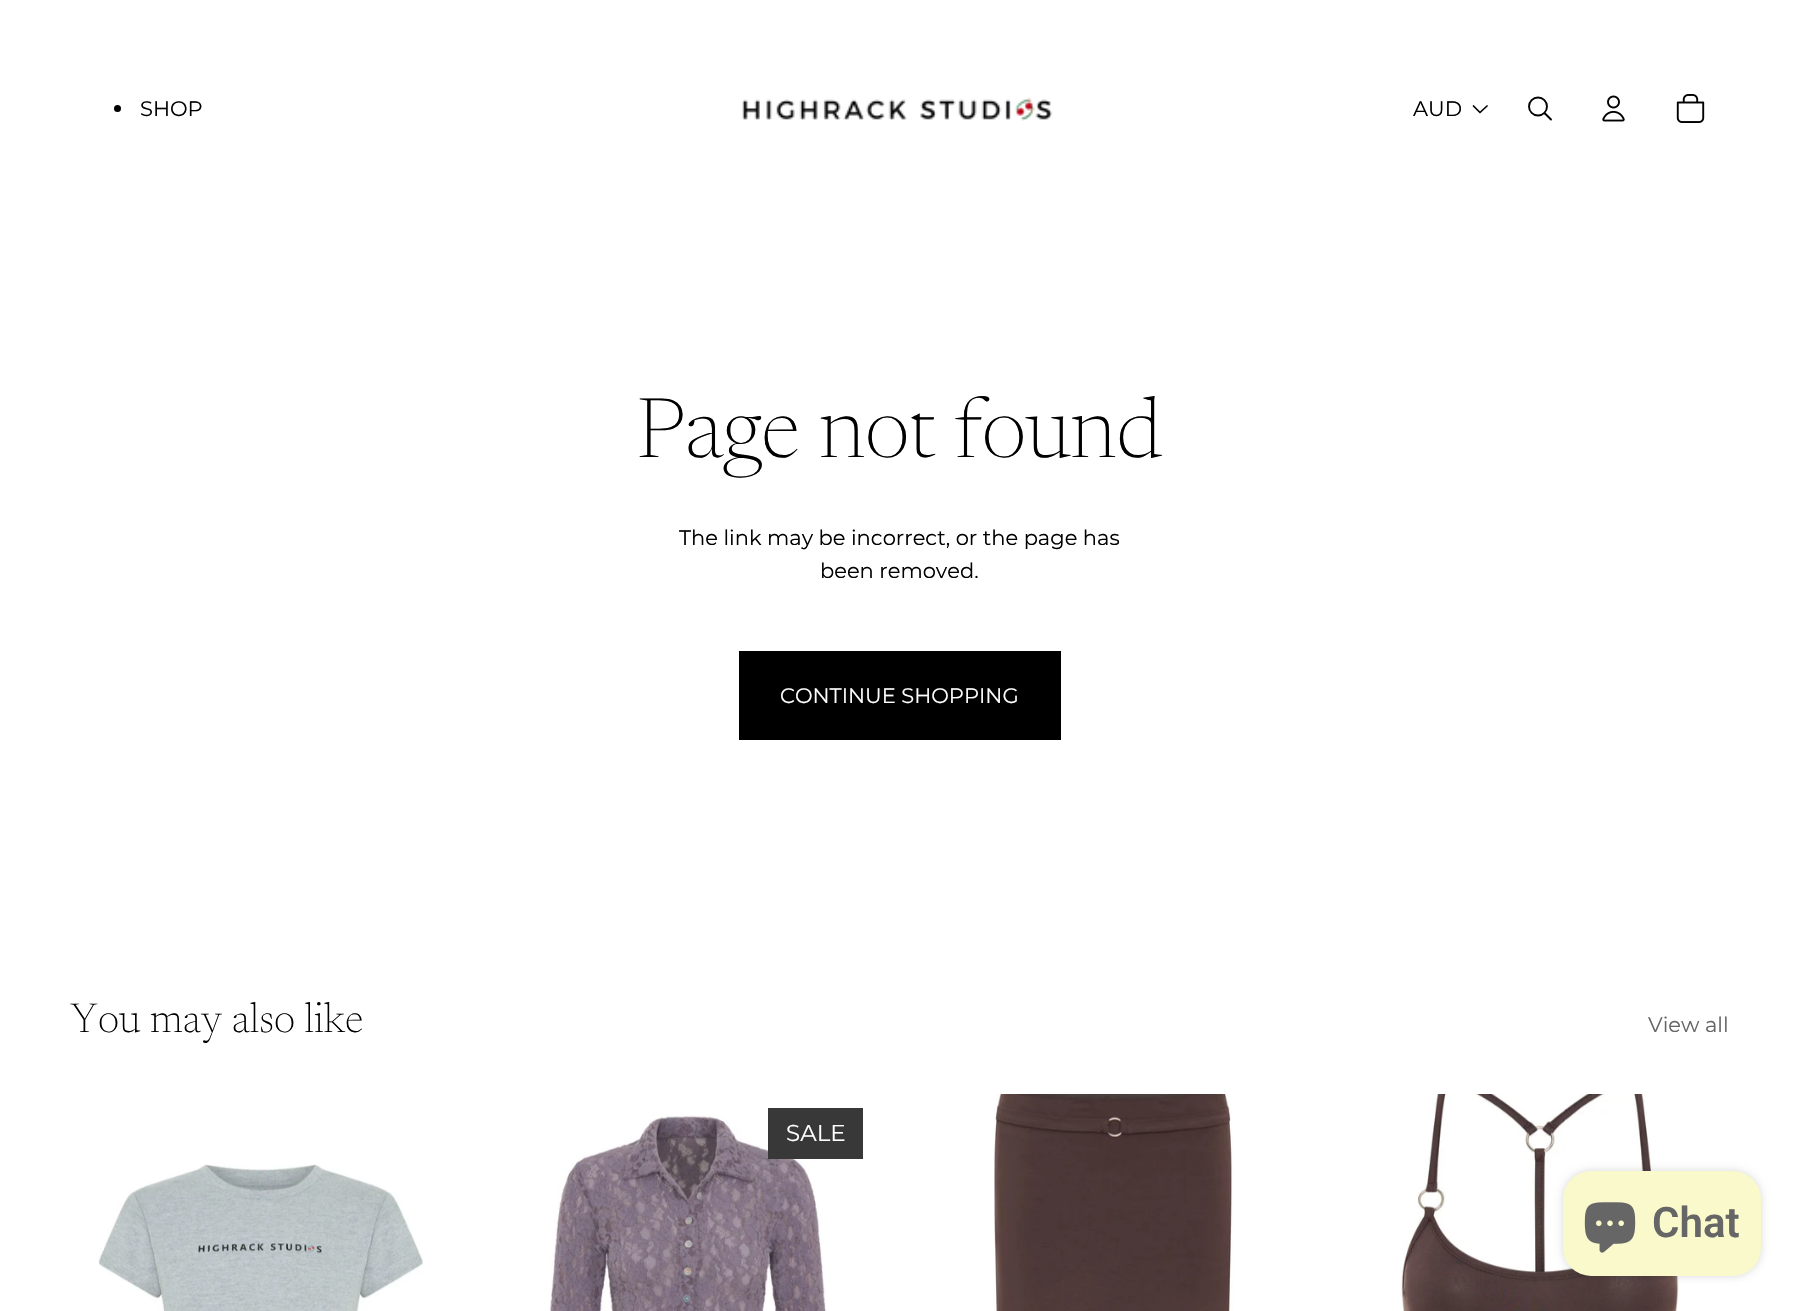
static SkFont makeFont(const char* family, int weight, float size, bool italic = false) {
  SkFontStyle style(weight, SkFontStyle::kNormal_Width,
    italic ? SkFontStyle::kItalic_Slant : SkFontStyle::kUpright_Slant);
  SkFont result(fontMgr->matchFamilyStyle(family, style), size);
  result.setSubpixel(true);
  return result;
}

static void text(SkCanvas* c, const char* s, float x, float y, const SkFont& font, SkColor color) {
  SkPaint ink(SkColor4f::FromColor(color));
  ink.setAntiAlias(true);
  c->drawString(s, x, y, font, ink);
}

static void box(SkCanvas* c, float l, float t, float r, float b, SkColor color) {
  SkPaint ink(SkColor4f::FromColor(color));
  ink.setAntiAlias(true);
  c->drawRect(SkRect::MakeLTRB(l, t, r, b), ink);
}

static void roundBox(SkCanvas* c, float l, float t, float r, float b, float radius, SkColor color) {
  SkPaint ink(SkColor4f::FromColor(color));
  ink.setAntiAlias(true);
  c->drawRoundRect(SkRect::MakeLTRB(l, t, r, b), radius, radius, ink);
}

static void picture(SkCanvas* c, const char* path, float l, float t, float r, float b) {
  auto image = SkImages::DeferredFromEncodedData(SkData::MakeFromFileName(path));
  c->drawImageRect(image, SkRect::MakeLTRB(l, t, r, b), SkSamplingOptions());
}

void draw(SkCanvas* c) {
  SkPaint paint;
  paint.setAntiAlias(true);
  c->clear(0xffffffff);
  paint.setColor(0xff000000);
  c->drawCircle(117.5f, 108.5f, 3.5f, paint);
  SkFont face1 = makeFont("Montserrat", 400, 21);
  text(c, "SHOP", 140, 116, face1, 0xff000000);
  picture(c, "img_01.png", 742, 97, 1053, 121);
  text(c, "AUD", 1413, 116, face1, 0xff000000);
  paint.setStyle(SkPaint::kStroke_Style);
  paint.setStrokeWidth(1.7f);
  paint.setStrokeCap(SkPaint::kRound_Cap);
  paint.setStrokeJoin(SkPaint::kRound_Join);
  c->drawPath(SkPathBuilder().moveTo(1487, 106).lineTo(1480, 112.5f).lineTo(1473.5f, 106).detach(), paint);
  paint.setStrokeWidth(1.9f);
  paint.setStrokeCap(SkPaint::kButt_Cap);
  paint.setStrokeJoin(SkPaint::kMiter_Join);
  c->drawCircle(1538, 106.5f, 9, paint);
  paint.setStrokeCap(SkPaint::kRound_Cap);
  paint.setStrokeJoin(SkPaint::kRound_Join);
  c->drawPath(SkPathBuilder().moveTo(1545, 113.5f).lineTo(1551, 119.5f).detach(), paint);
  picture(c, "img_02.png", 1602, 95, 1625, 122);
  picture(c, "img_03.png", 1676, 94, 1705, 123);
  SkFont face2 = makeFont("Newsreader", 200, 84);
  text(c, "Page not found", 637, 457, face2, 0xff000000);
  text(c, "The link may be incorrect, or the page has", 679, 545, face1, 0xff000000);
  text(c, "been removed.", 820, 578, face1, 0xff000000);
  box(c, 739, 651, 1061, 740, 0xff000000);
  text(c, "CONTINUE SHOPPING", 780, 703, face1, 0xffffffff);
  SkFont face3 = makeFont("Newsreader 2", 200, 42);
  text(c, "You may also like", 70, 1032, face3, 0xff000000);
  text(c, "View all", 1648, 1032, face1, 0xff666666);
  picture(c, "img_04.png", 549, 1115, 826, 1311);
  box(c, 768, 1108, 863, 1159, 0xff383838);
  SkFont face4 = makeFont("Montserrat", 400, 23);
  text(c, "SALE", 786, 1141, face4, 0xffffffff);
  picture(c, "img_05.png", 994, 1094, 1234, 1311);
  picture(c, "img_06.png", 1400, 1094, 1679, 1311);
  picture(c, "img_07.png", 98, 1164, 423, 1311);
  paint.setStyle(SkPaint::kFill_Style);
  paint.setColor(0x26000000);
  paint.setMaskFilter(SkMaskFilter::MakeBlur(kNormal_SkBlurStyle, 4.5f));
  c->drawRoundRect(SkRect::MakeLTRB(1563, 1171, 1761, 1276), 28, 28, paint);
  paint.setMaskFilter(nullptr);
  roundBox(c, 1563, 1171, 1761, 1276, 28, 0xfff9f9cc);
  picture(c, "img_08.png", 1584, 1202, 1636, 1253);
  SkFont face5 = makeFont("Roboto", 600, 42);
  text(c, "Chat", 1652, 1237, face5, 0xff666666);
}
